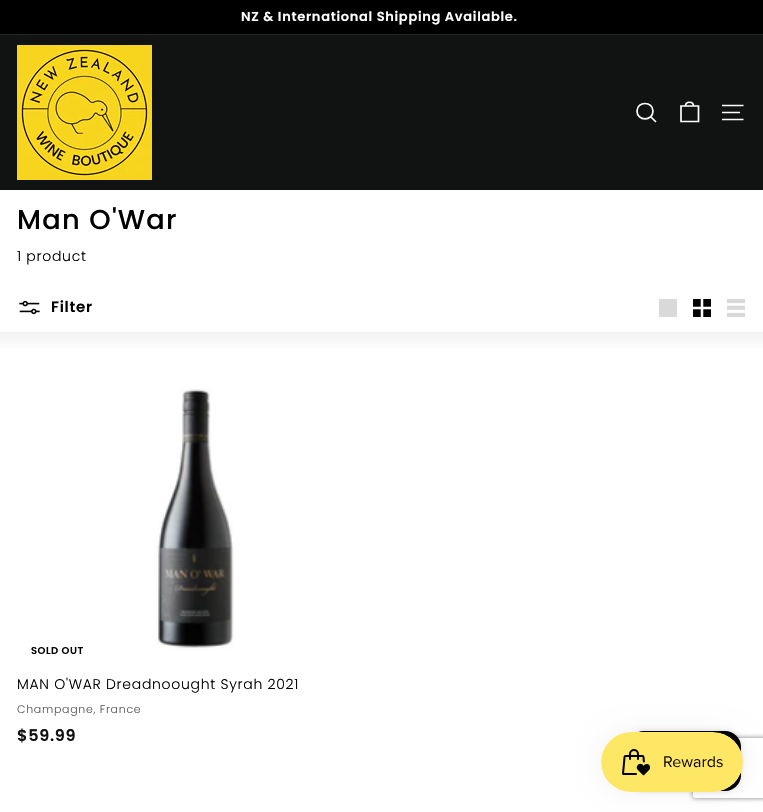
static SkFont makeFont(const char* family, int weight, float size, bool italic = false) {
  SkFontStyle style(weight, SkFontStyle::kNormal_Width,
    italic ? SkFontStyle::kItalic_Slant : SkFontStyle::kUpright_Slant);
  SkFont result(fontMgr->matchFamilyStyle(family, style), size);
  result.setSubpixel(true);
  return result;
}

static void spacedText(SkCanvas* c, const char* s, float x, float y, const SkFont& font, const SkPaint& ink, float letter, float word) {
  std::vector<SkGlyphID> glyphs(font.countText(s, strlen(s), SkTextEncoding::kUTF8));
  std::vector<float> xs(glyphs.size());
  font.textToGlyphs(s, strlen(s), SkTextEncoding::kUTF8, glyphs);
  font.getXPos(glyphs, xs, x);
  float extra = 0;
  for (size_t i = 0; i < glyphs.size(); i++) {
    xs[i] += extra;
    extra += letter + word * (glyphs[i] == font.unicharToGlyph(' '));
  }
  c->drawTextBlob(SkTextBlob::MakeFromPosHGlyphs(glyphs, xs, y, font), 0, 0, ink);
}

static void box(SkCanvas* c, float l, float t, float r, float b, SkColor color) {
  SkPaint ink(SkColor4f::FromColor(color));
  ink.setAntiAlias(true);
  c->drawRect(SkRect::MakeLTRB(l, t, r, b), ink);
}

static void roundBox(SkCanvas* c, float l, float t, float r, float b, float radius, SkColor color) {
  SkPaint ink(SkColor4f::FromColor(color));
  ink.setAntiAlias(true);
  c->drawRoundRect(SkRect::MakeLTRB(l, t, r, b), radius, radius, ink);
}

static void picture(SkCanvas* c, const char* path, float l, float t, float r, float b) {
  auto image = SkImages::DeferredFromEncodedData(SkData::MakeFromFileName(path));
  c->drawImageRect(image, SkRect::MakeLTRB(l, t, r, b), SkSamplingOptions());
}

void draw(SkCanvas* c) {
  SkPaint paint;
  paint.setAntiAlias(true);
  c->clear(0xffffffff);
  box(c, 0, 0, 763, 34, 0xff000000);
  SkFont face1 = makeFont("Poppins", 600, 13);
  paint.setColor(0xffffffff);
  spacedText(c, "NZ & International Shipping Available.", 241, 21, face1, paint, 0.7f, 0);
  box(c, 0, 34, 763, 35, 0xff262626);
  box(c, 0, 35, 763, 190, 0xff111212);
  picture(c, "img_01.png", 17, 45, 152, 180);
  paint.setStyle(SkPaint::kStroke_Style);
  paint.setStrokeWidth(1.7f);
  c->drawPath(SkPathBuilder().moveTo(653, 111).cubicTo(653, 121.5f, 637, 121.5f, 637, 111).cubicTo(637, 101, 653, 101, 653, 111).close().moveTo(656, 122).lineTo(650.5f, 116.5f).detach(), paint);
  c->drawPath(SkPathBuilder().moveTo(722, 105.5f).lineTo(743.5f, 105.5f).moveTo(722, 112.5f).lineTo(740, 112.5f).moveTo(722, 119.5f).lineTo(743.5f, 119.5f).moveTo(685.5f, 106).cubicTo(685.5f, 101, 693.5f, 101, 693.5f, 106).detach(), paint);
  c->drawPath(SkPathBuilder().moveTo(681, 106).lineTo(698.5f, 106).lineTo(698.5f, 121.5f).lineTo(681, 121.5f).close().detach(), paint);
  SkFont face2 = makeFont("Poppins", 500, 27.25f);
  paint.setStyle(SkPaint::kFill_Style);
  paint.setColor(0xff000000);
  spacedText(c, "Man O'War", 17, 229, face2, paint, 1.25f, 0);
  SkFont face3 = makeFont("Poppins", 300, 14);
  spacedText(c, "1 product", 17, 261, face3, paint, 0.7f, 0);
  picture(c, "img_02.png", 19, 300, 40, 315);
  SkFont face4 = makeFont("Poppins", 600, 15);
  spacedText(c, "Filter", 51, 312, face4, paint, 0.75f, 0);
  box(c, 659, 299, 677, 317, 0xffd9d9d9);
  picture(c, "img_03.png", 693, 299, 711, 317);
  picture(c, "img_04.png", 727, 299, 745, 317);
  {
    const SkColor colors[] = {0xfff2f2f2, 0xffffffff};
    const float stops[] = {0, 1};
    const SkPoint ends[] = {{382, 332}, {382, 352}};
    paint.setShader(SkGradientShader::MakeLinear(ends, colors, stops, 2, SkTileMode::kClamp));
    paint.setAlpha(255);
  }
  c->drawRect(SkRect::MakeLTRB(0, 332, 763, 348), paint);
  SkFont face5 = makeFont("Poppins", 600, 10);
  paint.setShader(nullptr);
  paint.setColor(0xff000000);
  spacedText(c, "SOLD OUT", 31, 654, face5, paint, 0.5f, 0);
  picture(c, "img_05.png", 156, 389, 234, 650);
  spacedText(c, "MAN O'WAR Dreadnoought Syrah 2021", 17, 689, face3, paint, 0.7f, 0);
  SkFont face6 = makeFont("Poppins", 300, 11);
  paint.setColor(0xff595959);
  spacedText(c, "Champagne, France", 17, 713, face6, paint, 0.7f, 0);
  SkFont face7 = makeFont("Poppins", 600, 16);
  paint.setColor(0xff111111);
  spacedText(c, "$59.99", 17, 741, face7, paint, 0.7f, 0);
  paint.setColor(0x26000000);
  paint.setMaskFilter(SkMaskFilter::MakeBlur(kNormal_SkBlurStyle, 2.5f));
  c->drawRoundRect(SkRect::MakeLTRB(628, 731, 741, 791), 16, 16, paint);
  paint.setMaskFilter(nullptr);
  c->save();
  c->clipPath(SkPathBuilder(SkPathFillType::kEvenOdd).moveTo(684, 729).lineTo(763, 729).lineTo(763, 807).lineTo(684, 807).close().moveTo(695, 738).lineTo(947, 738).cubicTo(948, 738, 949, 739, 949, 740).lineTo(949, 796).cubicTo(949, 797, 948, 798, 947, 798).lineTo(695, 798).cubicTo(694, 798, 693, 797, 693, 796).lineTo(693, 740).cubicTo(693, 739, 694, 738, 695, 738).close().detach(), true);
  paint.setColor(0xff808080);
  paint.setMaskFilter(SkMaskFilter::MakeBlur(kNormal_SkBlurStyle, 2.5f));
  c->drawRoundRect(SkRect::MakeLTRB(693, 738, 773, 798), 2, 2, paint);
  paint.setMaskFilter(nullptr);
  c->restore();
  roundBox(c, 628, 731, 741, 791, 16, 0xff000000);
  paint.setColor(0x0d000000);
  paint.setMaskFilter(SkMaskFilter::MakeBlur(kNormal_SkBlurStyle, 12.5f));
  c->drawRoundRect(SkRect::MakeLTRB(601, 732, 743, 792), 30, 30, paint);
  paint.setMaskFilter(nullptr);
  picture(c, "img_06.png", 601, 732, 743, 792);
}
